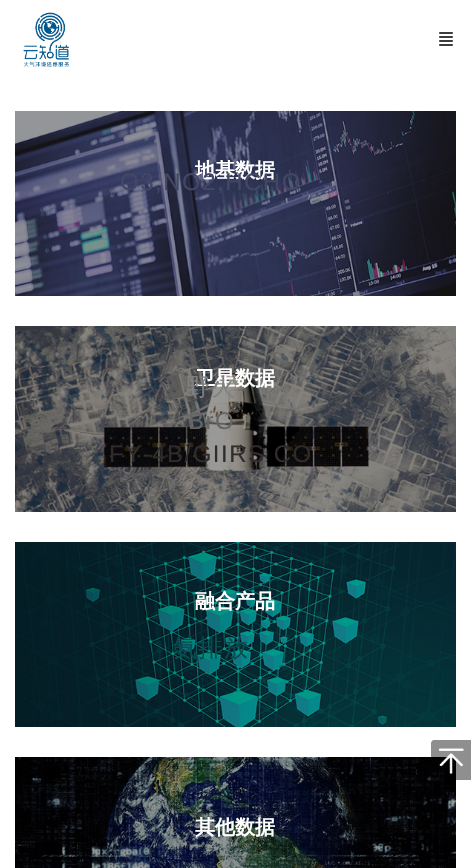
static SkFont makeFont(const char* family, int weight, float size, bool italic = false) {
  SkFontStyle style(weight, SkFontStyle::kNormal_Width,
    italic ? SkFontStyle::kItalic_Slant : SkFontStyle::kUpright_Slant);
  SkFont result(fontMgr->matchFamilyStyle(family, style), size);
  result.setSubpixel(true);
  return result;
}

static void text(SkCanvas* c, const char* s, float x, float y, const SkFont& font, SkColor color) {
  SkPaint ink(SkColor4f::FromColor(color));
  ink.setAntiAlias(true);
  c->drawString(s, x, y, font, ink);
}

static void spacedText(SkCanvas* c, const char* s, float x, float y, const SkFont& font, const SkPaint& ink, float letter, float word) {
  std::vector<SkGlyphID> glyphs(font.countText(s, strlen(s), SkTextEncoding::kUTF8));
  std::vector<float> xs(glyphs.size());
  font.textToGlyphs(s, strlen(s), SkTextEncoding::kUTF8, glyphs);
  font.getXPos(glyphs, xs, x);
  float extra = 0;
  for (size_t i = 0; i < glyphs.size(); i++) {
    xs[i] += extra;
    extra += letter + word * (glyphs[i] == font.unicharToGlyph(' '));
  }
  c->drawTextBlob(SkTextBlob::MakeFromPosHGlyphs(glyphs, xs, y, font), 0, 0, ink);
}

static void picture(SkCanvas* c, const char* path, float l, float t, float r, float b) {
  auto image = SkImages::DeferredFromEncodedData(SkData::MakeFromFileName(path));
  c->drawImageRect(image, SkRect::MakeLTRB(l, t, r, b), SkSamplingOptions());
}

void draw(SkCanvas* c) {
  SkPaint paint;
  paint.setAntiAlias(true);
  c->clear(0xffffffff);
  picture(c, "img_01.png", 23, 12, 69, 67);
  picture(c, "img_02.png", 439, 32, 453, 46);
  picture(c, "img_03.png", 15, 111, 456, 296);
  SkFont face1 = makeFont("WenQuanYi Zen Hei", 700, 20);
  text(c, "地基数据", 195, 177, face1, 0xffffffff);
  SkFont face2 = makeFont("Liberation Sans", 400, 24);
  paint.setColor(0xff434765);
  spacedText(c, "O3,NO2,HCHO", 120, 190, face2, paint, 1.5f, 0);
  picture(c, "img_04.png", 15, 326, 456, 512);
  text(c, "卫星数据", 195, 385, face1, 0xffffffff);
  SkFont face3 = makeFont("WenQuanYi Zen Hei", 500, 24);
  paint.setColor(0xff80807f);
  spacedText(c, "野火", 186, 395, face3, paint, 1.5f, 0);
  paint.setColor(0xff666565);
  spacedText(c, "BrO", 188, 429, face2, paint, 1.5f, 0);
  paint.setColor(0xff2f2c2b);
  spacedText(c, "FY-4B/GIIRS CO", 109, 462, face2, paint, 1.5f, 0);
  picture(c, "img_05.png", 15, 542, 456, 727);
  text(c, "融合产品", 195, 608, face1, 0xffffffff);
  paint.setColor(0xff064d51);
  spacedText(c, "氨排放", 173, 656, face3, paint, 1.5f, 0);
  picture(c, "img_06.png", 15, 757, 456, 868);
  text(c, "其他数据", 195, 834, face1, 0xffffffff);
  paint.setColor(0x70000000);
  c->drawPath(SkPathBuilder().moveTo(434, 740).lineTo(471, 740).lineTo(471, 780).lineTo(434, 780).cubicTo(432.5f, 780, 431, 778.5f, 431, 777).lineTo(431, 743).cubicTo(431, 741.5f, 432.5f, 740, 434, 740).close().detach(), paint);
  picture(c, "img_07.png", 438, 748, 464, 774);
}
